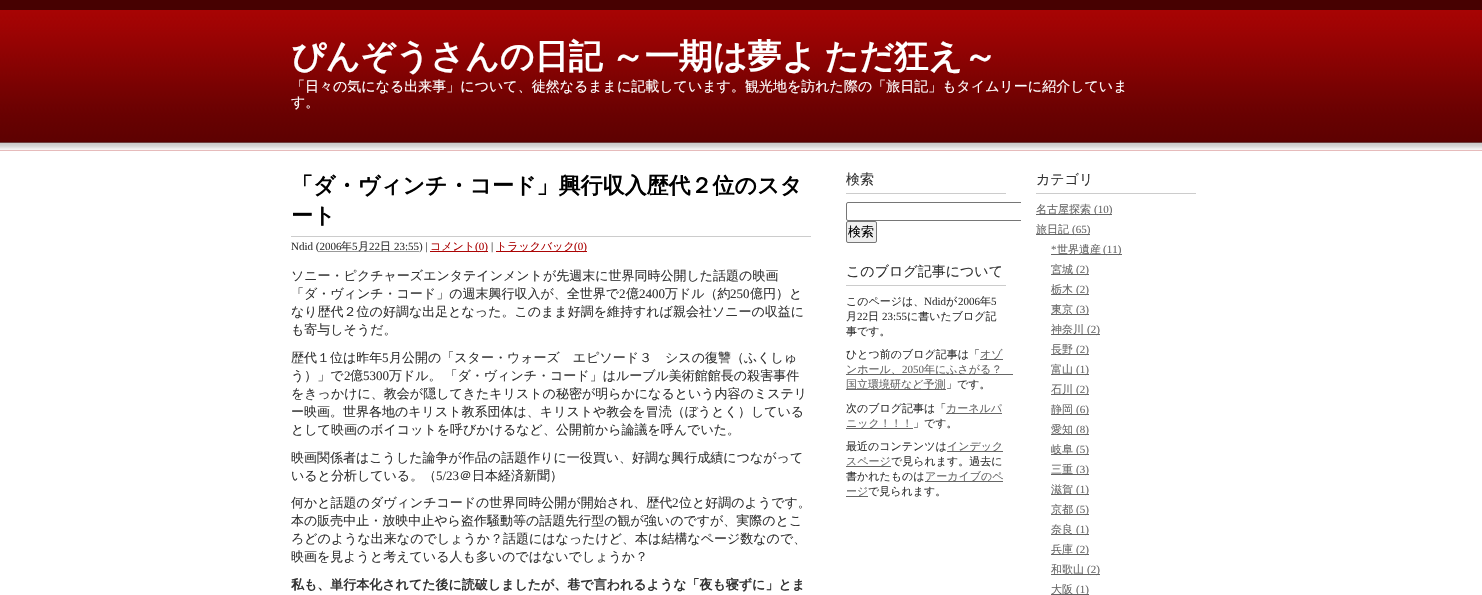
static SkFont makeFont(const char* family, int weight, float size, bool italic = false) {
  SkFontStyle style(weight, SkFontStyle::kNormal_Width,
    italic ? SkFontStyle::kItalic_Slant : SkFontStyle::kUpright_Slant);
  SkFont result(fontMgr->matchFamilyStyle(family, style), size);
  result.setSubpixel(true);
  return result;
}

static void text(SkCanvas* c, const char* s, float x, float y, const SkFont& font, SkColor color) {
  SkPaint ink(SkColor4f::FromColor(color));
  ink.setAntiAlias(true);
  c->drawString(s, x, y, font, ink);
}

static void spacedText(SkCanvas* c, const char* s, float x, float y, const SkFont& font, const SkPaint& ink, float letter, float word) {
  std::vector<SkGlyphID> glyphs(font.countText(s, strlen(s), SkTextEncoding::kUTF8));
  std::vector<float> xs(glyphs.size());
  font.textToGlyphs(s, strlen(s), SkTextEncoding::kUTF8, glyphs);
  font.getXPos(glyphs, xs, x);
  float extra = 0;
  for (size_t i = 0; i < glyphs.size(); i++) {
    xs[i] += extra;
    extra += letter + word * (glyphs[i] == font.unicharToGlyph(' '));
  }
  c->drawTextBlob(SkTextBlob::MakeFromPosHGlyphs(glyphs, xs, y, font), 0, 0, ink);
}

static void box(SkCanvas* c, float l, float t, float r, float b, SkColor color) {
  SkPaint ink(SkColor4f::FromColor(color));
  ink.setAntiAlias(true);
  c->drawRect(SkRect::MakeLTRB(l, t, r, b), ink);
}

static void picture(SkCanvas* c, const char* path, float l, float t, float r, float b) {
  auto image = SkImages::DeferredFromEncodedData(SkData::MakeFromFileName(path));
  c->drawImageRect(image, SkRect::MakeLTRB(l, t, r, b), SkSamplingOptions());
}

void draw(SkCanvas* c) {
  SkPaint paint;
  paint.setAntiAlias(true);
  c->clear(0xffffffff);
  picture(c, "img_01.png", 0, 10, 1482, 151);
  box(c, 0, 0, 1482, 10, 0xff470101);
  SkFont face1 = makeFont("WenQuanYi Zen Hei", 700, 34);
  paint.setColor(0xffffffff);
  spacedText(c, "ぴんぞうさんの日記 ～一期は夢よ ただ狂え～", 291, 68, face1, paint, 0, -2);
  SkFont face2 = makeFont("WenQuanYi Zen Hei", 500, 14);
  text(c, "「日々の気になる出来事」について、徒然なるままに記載しています。観光地を訪れた際の「旅日記」もタイムリーに紹介していま", 291, 91, face2, 0xffffffff);
  text(c, "す。", 291, 107, face2, 0xffffffff);
  SkFont face3 = makeFont("WenQuanYi Zen Hei", 700, 22);
  text(c, "「ダ・ヴィンチ・コード」興行収入歴代２位のスタ", 291, 193, face3, 0xff000000);
  text(c, "ート", 291, 223, face3, 0xff000000);
  box(c, 291, 236, 811, 237, 0xffcccccc);
  SkFont face4 = makeFont("Liberation Serif", 400, 11);
  text(c, "Ndid (2006", 291, 250, face4, 0xff333333);
  paint.setStyle(SkPaint::kStroke_Style);
  paint.setStrokeWidth(1);
  paint.setColor(0xff333333);
  paint.setPathEffect(SkDashPathEffect::Make({{1, 1}}, 0));
  c->drawPath(SkPathBuilder().moveTo(319.5f, 251.5f).lineTo(418.5f, 251.5f).detach(), paint);
  paint.setPathEffect(nullptr);
  SkFont face5 = makeFont("WenQuanYi Zen Hei", 500, 11);
  text(c, "年", 341, 250, face5, 0xff333333);
  text(c, "5", 352, 250, face4, 0xff333333);
  text(c, "月", 358, 250, face5, 0xff333333);
  text(c, "22", 369, 250, face4, 0xff333333);
  text(c, "日", 380, 250, face5, 0xff333333);
  text(c, "23:55) |", 394, 250, face4, 0xff333333);
  box(c, 430, 251, 488, 252, 0xffab0404);
  text(c, "コメント", 430, 250, face5, 0xffab0404);
  text(c, "(0)", 475, 250, face4, 0xffab0404);
  text(c, "|", 491, 250, face4, 0xff333333);
  box(c, 496, 251, 587, 252, 0xffab0404);
  text(c, "トラックバック", 496, 250, face5, 0xffab0404);
  text(c, "(0)", 574, 250, face4, 0xffab0404);
  SkFont face6 = makeFont("WenQuanYi Zen Hei", 500, 13);
  text(c, "ソニー・ピクチャーズエンタテインメントが先週末に世界同時公開した話題の映画", 291, 280, face6, 0xff333333);
  text(c, "「ダ・ヴィンチ・コード」の週末興行収入が、全世界で", 291, 298, face6, 0xff333333);
  SkFont face7 = makeFont("Liberation Serif", 400, 13);
  text(c, "2", 619, 298, face7, 0xff333333);
  text(c, "億", 626, 298, face6, 0xff333333);
  text(c, "2400", 639, 298, face7, 0xff333333);
  text(c, "万ドル（約", 665, 298, face6, 0xff333333);
  text(c, "250", 730, 298, face7, 0xff333333);
  text(c, "億円）と", 750, 298, face6, 0xff333333);
  text(c, "なり歴代２位の好調な出足となった。このまま好調を維持すれば親会社ソニーの収益に", 291, 316, face6, 0xff333333);
  text(c, "も寄与しそうだ。", 291, 334, face6, 0xff333333);
  text(c, "歴代１位は昨年", 291, 362, face6, 0xff333333);
  text(c, "5", 382, 362, face7, 0xff333333);
  text(c, "月公開の「スター・ウォーズ　エピソード３　シスの復讐（ふくしゅ", 389, 362, face6, 0xff333333);
  text(c, "う）」で", 291, 380, face6, 0xff333333);
  text(c, "2", 344, 380, face7, 0xff333333);
  text(c, "億", 350, 380, face6, 0xff333333);
  text(c, "5300", 363, 380, face7, 0xff333333);
  paint.setStyle(SkPaint::kFill_Style);
  spacedText(c, "万ドル。 「ダ・ヴィンチ・コード」はルーブル美術館館長の殺害事件", 389, 380, face6, paint, 0, -1);
  text(c, "をきっかけに、教会が隠してきたキリストの秘密が明らかになるという内容のミステリ", 291, 398, face6, 0xff333333);
  text(c, "ー映画。世界各地のキリスト教系団体は、キリストや教会を冒涜（ぼうとく）している", 291, 416, face6, 0xff333333);
  text(c, "として映画のボイコットを呼びかけるなど、公開前から論議を呼んでいた。", 291, 434, face6, 0xff333333);
  text(c, "映画関係者はこうした論争が作品の話題作りに一役買い、好調な興行成績につながって", 291, 462, face6, 0xff333333);
  text(c, "いると分析している。（", 291, 480, face6, 0xff333333);
  text(c, "5/23", 436, 480, face7, 0xff333333);
  text(c, "＠日本経済新聞）", 459, 480, face6, 0xff333333);
  text(c, "何かと話題のダヴィンチコードの世界同時公開が開始され、歴代", 291, 507, face6, 0xff333333);
  text(c, "2", 672, 507, face7, 0xff333333);
  text(c, "位と好調のようです。", 679, 507, face6, 0xff333333);
  text(c, "本の販売中止・放映中止やら盗作騒動等の話題先行型の観が強いのですが、実際のとこ", 291, 525, face6, 0xff333333);
  text(c, "ろどのような出来なのでしょうか？話題にはなったけど、本は結構なページ数なので、", 291, 543, face6, 0xff333333);
  text(c, "映画を見ようと考えている人も多いのではないでしょうか？", 291, 561, face6, 0xff333333);
  SkFont face8 = makeFont("WenQuanYi Zen Hei", 700, 13);
  text(c, "私も、単行本化されてた後に読破しましたが、巷で言われるような「夜も寝ずに」とま", 291, 589, face8, 0xff333333);
  box(c, 846, 193, 1006, 194, 0xffcccccc);
  text(c, "検索", 846, 184, face2, 0xff333333);
  c->save();
  c->clipRect(SkRect::MakeLTRB(831, 171, 1021, 263));
  paint.setStyle(SkPaint::kStroke_Style);
  paint.setColor(0xff767676);
  c->drawRoundRect(SkRect::MakeLTRB(846.5f, 202.5f, 1026.5f, 220.5f), 1.5f, 1.5f, paint);
  c->restore();
  paint.setStyle(SkPaint::kFill_Style);
  paint.setColor(0xffefefef);
  c->drawRoundRect(SkRect::MakeLTRB(846.5f, 221.5f, 876.5f, 242.5f), 1.5f, 1.5f, paint);
  paint.setStyle(SkPaint::kStroke_Style);
  paint.setColor(0xff767676);
  c->drawRoundRect(SkRect::MakeLTRB(846.5f, 221.5f, 876.5f, 242.5f), 1.5f, 1.5f, paint);
  text(c, "検索", 848, 236, face6, 0xff000000);
  box(c, 846, 285, 1006, 286, 0xffcccccc);
  text(c, "このブログ記事について", 846, 276, face2, 0xff333333);
  text(c, "このページは、", 846, 305, face5, 0xff333333);
  text(c, "Ndid", 924, 305, face4, 0xff333333);
  text(c, "が", 946, 305, face5, 0xff333333);
  text(c, "2006", 958, 305, face4, 0xff333333);
  text(c, "年", 980, 305, face5, 0xff333333);
  text(c, "5", 991, 305, face4, 0xff333333);
  text(c, "月", 846, 320, face5, 0xff333333);
  text(c, "22", 857, 320, face4, 0xff333333);
  text(c, "日", 868, 320, face5, 0xff333333);
  text(c, "23:55", 882, 320, face4, 0xff333333);
  text(c, "に書いたブログ記", 907, 320, face5, 0xff333333);
  text(c, "事です。", 846, 335, face5, 0xff333333);
  text(c, "ひとつ前のブログ記事は「", 846, 358, face5, 0xff333333);
  box(c, 980, 359, 1003, 360, 0xff666666);
  text(c, "オゾ", 980, 358, face5, 0xff666666);
  box(c, 846, 374, 1013, 375, 0xff666666);
  text(c, "ンホール、", 846, 373, face5, 0xff666666);
  text(c, "2050", 902, 373, face4, 0xff666666);
  text(c, "年にふさがる？", 924, 373, face5, 0xff666666);
  box(c, 846, 389, 946, 390, 0xff666666);
  text(c, "国立環境研など予測", 846, 388, face5, 0xff666666);
  text(c, "」です。", 946, 388, face5, 0xff333333);
  text(c, "次のブログ記事は「", 846, 412, face5, 0xff333333);
  box(c, 946, 413, 1002, 414, 0xff666666);
  text(c, "カーネルパ", 946, 412, face5, 0xff666666);
  box(c, 846, 428, 913, 429, 0xff666666);
  text(c, "ニック！！！", 846, 427, face5, 0xff666666);
  text(c, "」です。", 913, 427, face5, 0xff333333);
  text(c, "最近のコンテンツは", 846, 450, face5, 0xff333333);
  box(c, 947, 451, 1003, 452, 0xff666666);
  text(c, "インデック", 947, 450, face5, 0xff666666);
  box(c, 846, 466, 891, 467, 0xff666666);
  text(c, "スページ", 846, 465, face5, 0xff666666);
  text(c, "で見られます。過去に", 891, 465, face5, 0xff333333);
  text(c, "書かれたものは", 846, 480, face5, 0xff333333);
  box(c, 925, 481, 1003, 482, 0xff666666);
  text(c, "アーカイブのペ", 925, 480, face5, 0xff666666);
  box(c, 846, 496, 868, 497, 0xff666666);
  text(c, "ージ", 846, 495, face5, 0xff666666);
  text(c, "で見られます。", 868, 495, face5, 0xff333333);
  box(c, 1036, 193, 1196, 194, 0xffcccccc);
  text(c, "カテゴリ", 1036, 184, face2, 0xff333333);
  box(c, 1036, 214, 1112, 215, 0xff666666);
  text(c, "名古屋探索", 1036, 213, face5, 0xff666666);
  text(c, "(10)", 1094, 213, face4, 0xff666666);
  box(c, 1036, 234, 1090, 235, 0xff666666);
  text(c, "旅日記", 1036, 233, face5, 0xff666666);
  text(c, "(65)", 1072, 233, face4, 0xff666666);
  text(c, "*", 1051, 253, face4, 0xff666666);
  box(c, 1051, 254, 1122, 255, 0xff666666);
  text(c, "世界遺産", 1057, 253, face5, 0xff666666);
  text(c, "(11)", 1103, 253, face4, 0xff666666);
  box(c, 1051, 274, 1089, 275, 0xff666666);
  text(c, "宮城", 1051, 273, face5, 0xff666666);
  text(c, "(2)", 1076, 273, face4, 0xff666666);
  box(c, 1051, 294, 1089, 295, 0xff666666);
  text(c, "栃木", 1051, 293, face5, 0xff666666);
  text(c, "(2)", 1076, 293, face4, 0xff666666);
  box(c, 1051, 314, 1089, 315, 0xff666666);
  text(c, "東京", 1051, 313, face5, 0xff666666);
  text(c, "(3)", 1076, 313, face4, 0xff666666);
  box(c, 1051, 334, 1100, 335, 0xff666666);
  text(c, "神奈川", 1051, 333, face5, 0xff666666);
  text(c, "(2)", 1087, 333, face4, 0xff666666);
  box(c, 1051, 354, 1089, 355, 0xff666666);
  text(c, "長野", 1051, 353, face5, 0xff666666);
  text(c, "(2)", 1076, 353, face4, 0xff666666);
  box(c, 1051, 374, 1089, 375, 0xff666666);
  text(c, "富山", 1051, 373, face5, 0xff666666);
  text(c, "(1)", 1076, 373, face4, 0xff666666);
  box(c, 1051, 394, 1089, 395, 0xff666666);
  text(c, "石川", 1051, 393, face5, 0xff666666);
  text(c, "(2)", 1076, 393, face4, 0xff666666);
  box(c, 1051, 414, 1089, 415, 0xff666666);
  text(c, "静岡", 1051, 413, face5, 0xff666666);
  text(c, "(6)", 1076, 413, face4, 0xff666666);
  box(c, 1051, 434, 1089, 435, 0xff666666);
  text(c, "愛知", 1051, 433, face5, 0xff666666);
  text(c, "(8)", 1076, 433, face4, 0xff666666);
  box(c, 1051, 454, 1089, 455, 0xff666666);
  text(c, "岐阜", 1051, 453, face5, 0xff666666);
  text(c, "(5)", 1076, 453, face4, 0xff666666);
  text(c, "三重", 1051, 473, face5, 0xff666666);
  box(c, 1051, 474, 1089, 475, 0xff666666);
  text(c, "(3)", 1076, 473, face4, 0xff666666);
  box(c, 1051, 494, 1089, 495, 0xff666666);
  text(c, "滋賀", 1051, 493, face5, 0xff666666);
  text(c, "(1)", 1076, 493, face4, 0xff666666);
  box(c, 1051, 514, 1089, 515, 0xff666666);
  text(c, "京都", 1051, 513, face5, 0xff666666);
  text(c, "(5)", 1076, 513, face4, 0xff666666);
  box(c, 1051, 534, 1089, 535, 0xff666666);
  text(c, "奈良", 1051, 533, face5, 0xff666666);
  text(c, "(1)", 1076, 533, face4, 0xff666666);
  box(c, 1051, 554, 1089, 555, 0xff666666);
  text(c, "兵庫", 1051, 553, face5, 0xff666666);
  text(c, "(2)", 1076, 553, face4, 0xff666666);
  box(c, 1051, 574, 1100, 575, 0xff666666);
  text(c, "和歌山", 1051, 573, face5, 0xff666666);
  text(c, "(2)", 1087, 573, face4, 0xff666666);
  box(c, 1051, 594, 1089, 595, 0xff666666);
  text(c, "大阪", 1051, 593, face5, 0xff666666);
  text(c, "(1)", 1076, 593, face4, 0xff666666);
}
